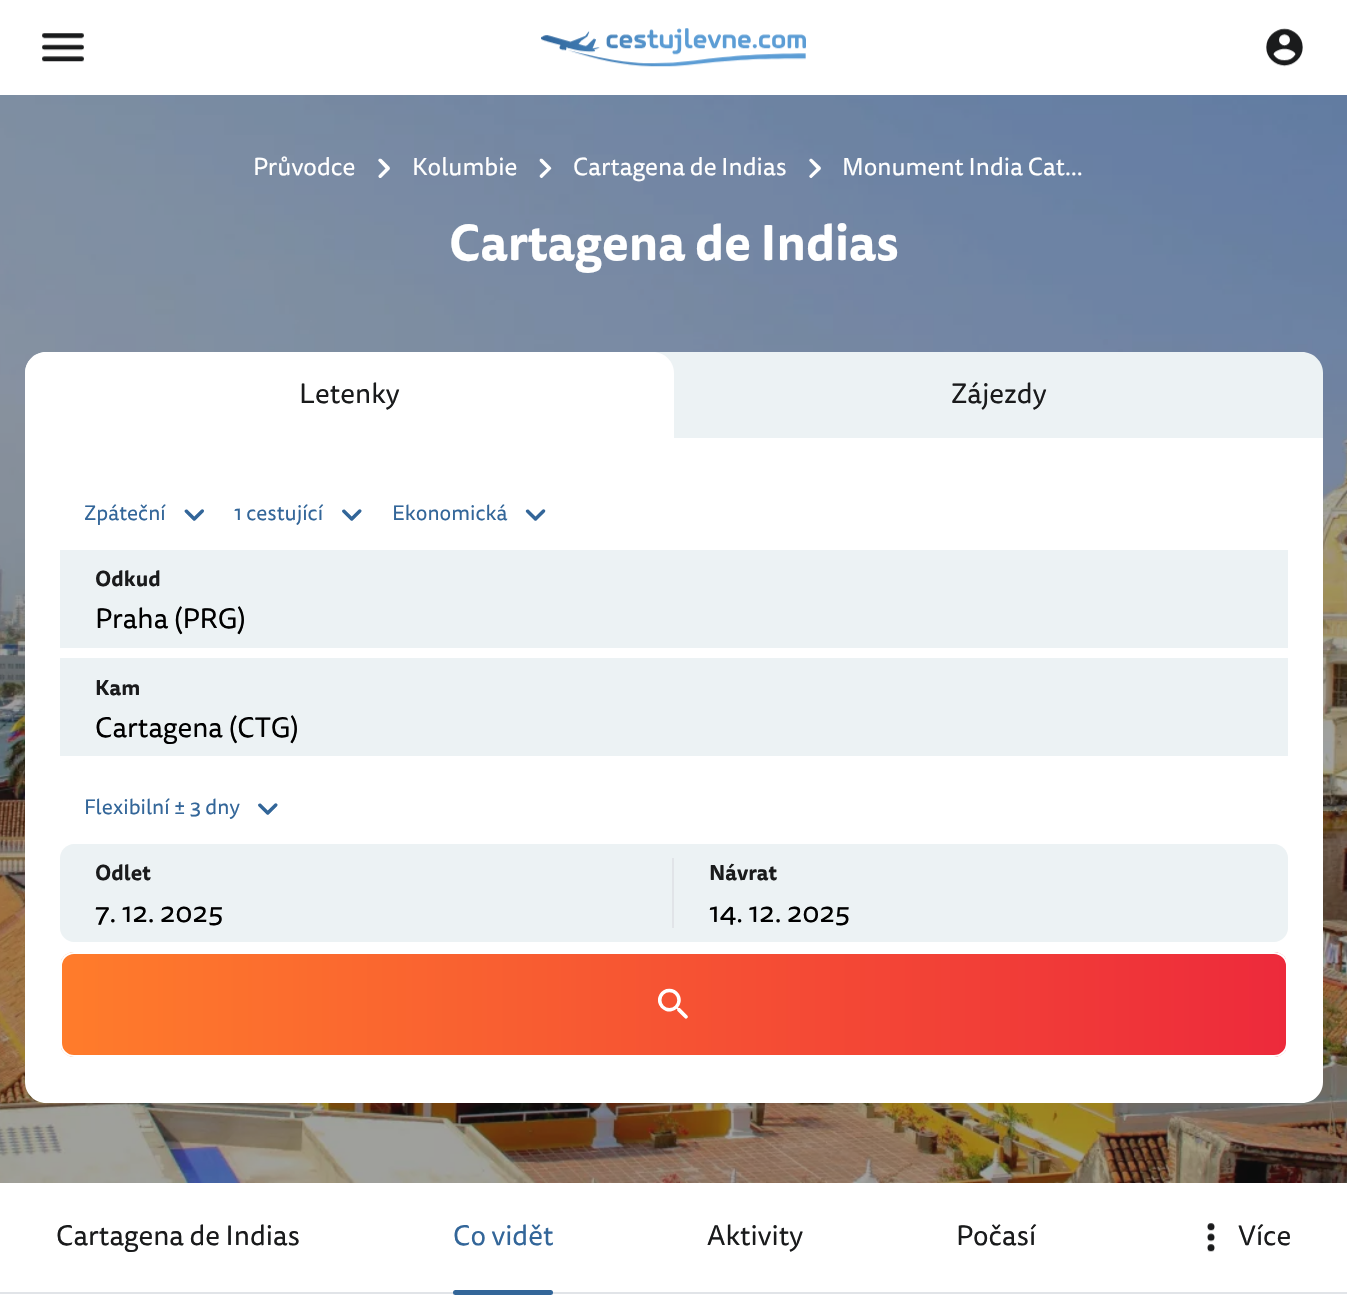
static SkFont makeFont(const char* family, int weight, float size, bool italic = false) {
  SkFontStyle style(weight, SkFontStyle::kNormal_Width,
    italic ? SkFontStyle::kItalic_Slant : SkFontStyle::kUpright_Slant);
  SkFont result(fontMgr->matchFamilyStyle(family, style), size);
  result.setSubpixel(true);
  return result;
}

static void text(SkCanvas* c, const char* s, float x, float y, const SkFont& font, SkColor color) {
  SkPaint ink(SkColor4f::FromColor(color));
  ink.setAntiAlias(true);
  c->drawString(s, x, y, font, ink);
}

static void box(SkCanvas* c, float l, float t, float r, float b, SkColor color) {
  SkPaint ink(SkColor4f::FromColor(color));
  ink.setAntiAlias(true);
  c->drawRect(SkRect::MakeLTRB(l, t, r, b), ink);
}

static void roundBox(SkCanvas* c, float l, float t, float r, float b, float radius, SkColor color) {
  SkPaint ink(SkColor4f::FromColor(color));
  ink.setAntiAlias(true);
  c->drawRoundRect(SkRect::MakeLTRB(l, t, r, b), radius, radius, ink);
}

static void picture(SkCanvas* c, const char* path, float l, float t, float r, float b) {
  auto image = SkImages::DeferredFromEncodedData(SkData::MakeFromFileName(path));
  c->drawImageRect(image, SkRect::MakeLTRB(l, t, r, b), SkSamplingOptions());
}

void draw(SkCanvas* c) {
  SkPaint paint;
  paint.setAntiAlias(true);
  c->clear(0xffffffff);
  picture(c, "img_01.png", 42, 33, 84, 62);
  picture(c, "img_02.png", 541, 28, 806, 67);
  picture(c, "img_03.png", 1266, 28, 1303, 67);
  picture(c, "img_04.png", 0, 95, 1347, 1183);
  SkFont face1 = makeFont("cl", 400, 24.5f);
  text(c, "Průvodce", 253, 175, face1, 0xffffffff);
  paint.setColor(0xffffffff);
  c->drawPath(SkPathBuilder().moveTo(379, 159).cubicTo(379.5f, 158.5f, 380.5f, 158.5f, 381.5f, 159).lineTo(389.5f, 167).cubicTo(390, 168, 390, 169, 389.5f, 169.5f).lineTo(381.5f, 177.5f).cubicTo(380.5f, 178.5f, 379.5f, 178, 379, 177.5f).cubicTo(378.5f, 177, 378, 176, 379, 175).lineTo(385.5f, 168.5f).lineTo(379, 161.5f).cubicTo(378, 161, 378, 160, 379, 159).close().detach(), paint);
  text(c, "Kolumbie", 412, 175, face1, 0xffffffff);
  c->drawPath(SkPathBuilder().moveTo(540, 159).cubicTo(541, 158.5f, 542, 158.5f, 542.5f, 159).lineTo(550.5f, 167).cubicTo(551.5f, 168, 551.5f, 169, 550.5f, 169.5f).lineTo(542.5f, 177.5f).cubicTo(542, 178.5f, 541, 178, 540.5f, 177.5f).cubicTo(539.5f, 177, 539.5f, 176, 540, 175).lineTo(547, 168.5f).lineTo(540, 161.5f).cubicTo(539.5f, 161, 539.5f, 160, 540, 159).close().detach(), paint);
  text(c, "Cartagena de Indias", 573, 175, face1, 0xffffffff);
  c->drawPath(SkPathBuilder().moveTo(810, 159).cubicTo(810.5f, 158.5f, 811.5f, 158.5f, 812, 159).lineTo(820.5f, 167).cubicTo(821, 168, 821, 169, 820.5f, 169.5f).lineTo(812, 177.5f).cubicTo(811.5f, 178.5f, 810.5f, 178, 810, 177.5f).cubicTo(809, 177, 809, 176, 810, 175).lineTo(816.5f, 168.5f).lineTo(810, 161.5f).cubicTo(809, 161, 809, 160, 810, 159).close().detach(), paint);
  text(c, "Monument India Cat…", 842, 175, face1, 0xffffffff);
  SkFont face2 = makeFont("cl", 700, 49);
  text(c, "Cartagena de Indias", 449, 260, face2, 0xffffffff);
  paint.setColor(0xffecf2f4);
  c->drawPath(SkPathBuilder().moveTo(46, 352).lineTo(1302, 352).cubicTo(1313.5f, 352, 1323, 361.5f, 1323, 373).lineTo(1323, 439).lineTo(25, 439).lineTo(25, 373).cubicTo(25, 361.5f, 34.5f, 352, 46, 352).close().detach(), paint);
  paint.setColor(0xffffffff);
  c->drawPath(SkPathBuilder().moveTo(25, 438).lineTo(1323, 438).lineTo(1323, 1082).cubicTo(1323, 1093.5f, 1313.5f, 1103, 1302, 1103).lineTo(46, 1103).cubicTo(34.5f, 1103, 25, 1093.5f, 25, 1082).close().detach(), paint);
  c->drawPath(SkPathBuilder().moveTo(46, 352).lineTo(653, 352).cubicTo(664.5f, 352, 674, 361.5f, 674, 373).lineTo(674, 439).lineTo(25, 439).lineTo(25, 373).cubicTo(25, 361.5f, 34.5f, 352, 46, 352).close().detach(), paint);
  SkFont face3 = makeFont("cl", 400, 28);
  text(c, "Letenky", 299, 403, face3, 0xff1a1b1c);
  text(c, "Zájezdy", 951, 403, face3, 0xff1a1b1c);
  SkFont face4 = makeFont("cl", 400, 21);
  text(c, "Zpáteční", 84, 520, face4, 0xff336699);
  picture(c, "img_05.png", 184, 509, 204, 521);
  text(c, "1 cestující", 234, 520, face4, 0xff336699);
  picture(c, "img_06.png", 342, 509, 362, 521);
  text(c, "Ekonomická", 392, 520, face4, 0xff336699);
  picture(c, "img_07.png", 525, 509, 546, 521);
  box(c, 60, 550, 1288, 648, 0xffecf2f4);
  SkFont face5 = makeFont("cl", 700, 21);
  text(c, "Odkud", 95, 586, face5, 0xff1a1b1c);
  text(c, "Praha (PRG)", 95, 628, face3, 0xff000000);
  box(c, 60, 658, 1288, 756, 0xffecf2f4);
  text(c, "Kam", 95, 695, face5, 0xff1a1b1c);
  text(c, "Cartagena (CTG)", 95, 737, face3, 0xff000000);
  text(c, "Flexibilní ± 3 dny", 84, 814, face4, 0xff336699);
  picture(c, "img_06.png", 258, 803, 278, 815);
  paint.setColor(0xffecf2f4);
  c->drawPath(SkPathBuilder().moveTo(74, 844).lineTo(674, 844).lineTo(674, 942).lineTo(74, 942).cubicTo(66.5f, 942, 60, 935.5f, 60, 928).lineTo(60, 858).cubicTo(60, 850.5f, 66.5f, 844, 74, 844).close().detach(), paint);
  text(c, "Odlet", 95, 880, face5, 0xff1a1b1c);
  text(c, "7. 12. 2025", 95, 922, face3, 0xff000000);
  box(c, 672, 858, 674, 928, 0xffe1e4e8);
  c->drawPath(SkPathBuilder().moveTo(674, 844).lineTo(1274, 844).cubicTo(1281.5f, 844, 1288, 850.5f, 1288, 858).lineTo(1288, 928).cubicTo(1288, 935.5f, 1281.5f, 942, 1274, 942).lineTo(674, 942).close().detach(), paint);
  text(c, "Návrat", 709, 880, face5, 0xff1a1b1c);
  text(c, "14. 12. 2025", 709, 922, face3, 0xff000000);
  c->save();
  c->clipPath(SkPathBuilder().moveTo(74, 952).lineTo(1274, 952).cubicTo(1281.5f, 952, 1288, 958.5f, 1288, 966).lineTo(1288, 1043).cubicTo(1288, 1050.5f, 1281.5f, 1057, 1274, 1057).lineTo(74, 1057).cubicTo(66.5f, 1057, 60, 1050.5f, 60, 1043).lineTo(60, 966).cubicTo(60, 958.5f, 66.5f, 952, 74, 952).close().detach(), true);
  {
    const SkColor colors[] = {0xffff7c2b, 0xffed2a3b};
    const float stops[] = {0, 1};
    const SkPoint ends[] = {{61, 1005}, {1286, 1005}};
    paint.setShader(SkGradientShader::MakeLinear(ends, colors, stops, 2, SkTileMode::kClamp));
    paint.setAlpha(255);
  }
  c->drawRect(SkRect::MakeLTRB(61, 952, 1286, 1057), paint);
  c->restore();
  paint.setStyle(SkPaint::kStroke_Style);
  paint.setStrokeWidth(2);
  paint.setShader(nullptr);
  paint.setColor(0xffffffff);
  c->drawRoundRect(SkRect::MakeLTRB(61, 953, 1287, 1056), 13, 13, paint);
  picture(c, "img_08.png", 658, 988, 688, 1019);
  box(c, 0, 1292, 1347, 1294, 0xffe1e4e8);
  text(c, "Cartagena de Indias", 56, 1245, face3, 0xff1a1b1c);
  text(c, "Co vidět", 453, 1245, face3, 0xff336699);
  roundBox(c, 453, 1290, 553, 1295, 2.5f, 0xff336699);
  text(c, "Aktivity", 707, 1245, face3, 0xff1a1b1c);
  text(c, "Počasí", 956, 1245, face3, 0xff1a1b1c);
  picture(c, "img_09.png", 1207, 1223, 1215, 1252);
  text(c, "Více", 1238, 1245, face3, 0xff1a1b1c);
}
